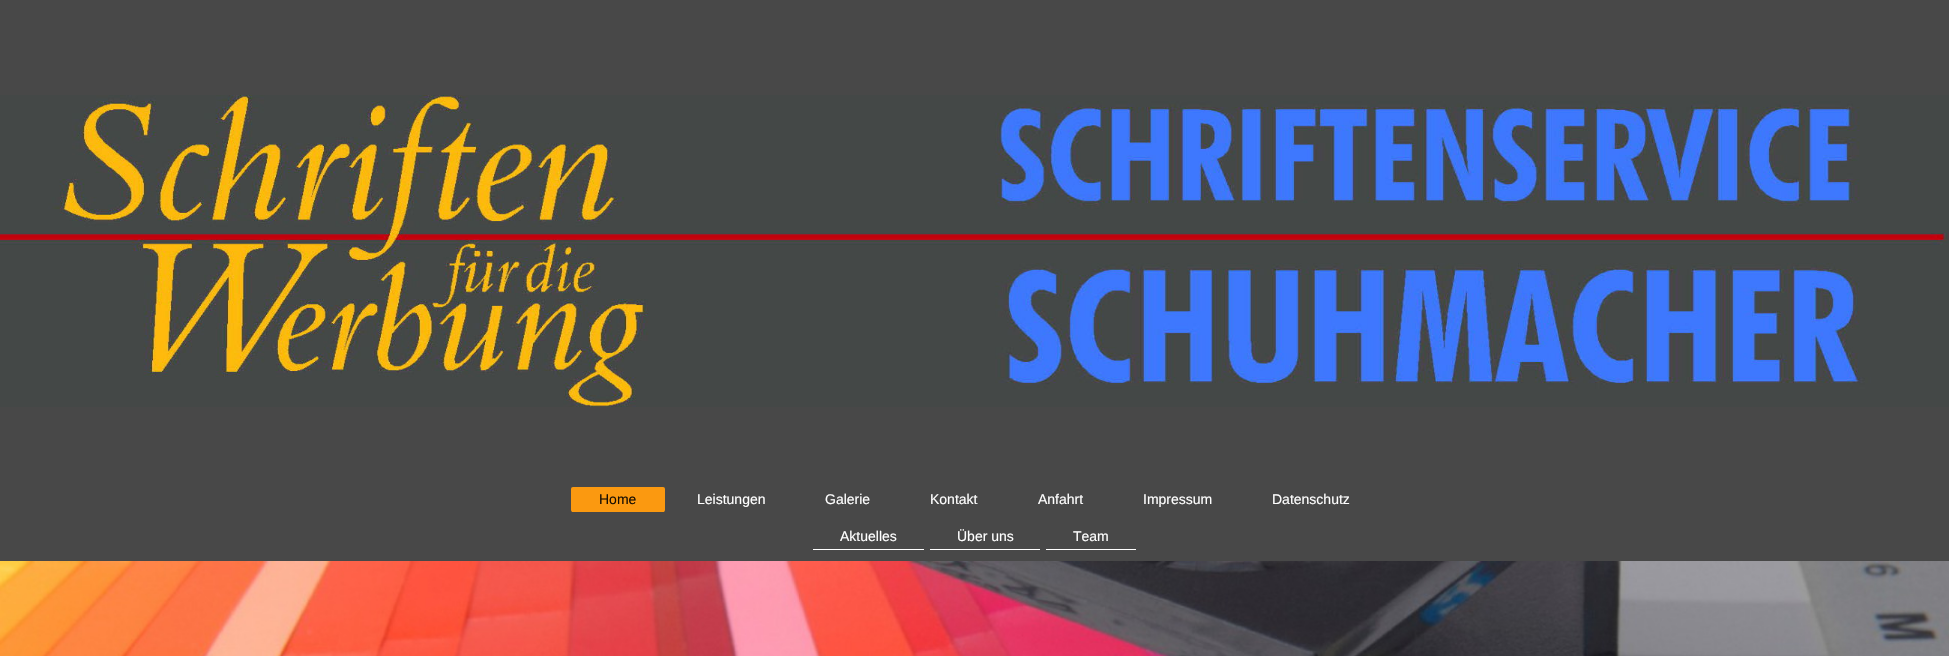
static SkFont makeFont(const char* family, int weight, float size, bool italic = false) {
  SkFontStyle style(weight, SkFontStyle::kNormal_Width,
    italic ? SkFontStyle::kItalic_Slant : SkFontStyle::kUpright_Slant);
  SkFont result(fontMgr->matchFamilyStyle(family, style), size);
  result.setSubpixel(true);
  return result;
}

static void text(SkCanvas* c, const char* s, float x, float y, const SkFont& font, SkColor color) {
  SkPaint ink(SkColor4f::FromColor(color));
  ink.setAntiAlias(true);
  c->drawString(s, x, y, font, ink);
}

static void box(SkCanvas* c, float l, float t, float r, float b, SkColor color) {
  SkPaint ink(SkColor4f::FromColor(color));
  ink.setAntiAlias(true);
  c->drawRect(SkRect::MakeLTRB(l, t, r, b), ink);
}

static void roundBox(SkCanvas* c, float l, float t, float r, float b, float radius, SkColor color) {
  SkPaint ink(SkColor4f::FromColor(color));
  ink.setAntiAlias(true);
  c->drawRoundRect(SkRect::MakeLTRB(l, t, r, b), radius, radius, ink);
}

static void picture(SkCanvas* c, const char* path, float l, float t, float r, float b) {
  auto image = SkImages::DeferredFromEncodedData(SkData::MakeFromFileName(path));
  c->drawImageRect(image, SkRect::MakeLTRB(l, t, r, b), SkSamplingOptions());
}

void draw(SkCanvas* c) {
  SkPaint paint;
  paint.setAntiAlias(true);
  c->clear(0xff484848);
  picture(c, "img_01.png", 0, 95, 1949, 407);
  roundBox(c, 571, 487, 665, 512, 2, 0xfffb9910);
  box(c, 572, 511, 664, 512, 0xfffb9910);
  SkFont face1 = makeFont("Liberation Sans", 400, 14);
  text(c, "Home", 599, 504, face1, 0xff190f02);
  text(c, "Leistungen", 697, 504, face1, 0xffffffff);
  text(c, "Galerie", 825, 504, face1, 0xffffffff);
  text(c, "Kontakt", 930, 504, face1, 0xffffffff);
  text(c, "Anfahrt", 1038, 504, face1, 0xffffffff);
  text(c, "Impressum", 1143, 504, face1, 0xffffffff);
  text(c, "Datenschutz", 1272, 504, face1, 0xffffffff);
  box(c, 813, 549, 924, 550, 0xffffffff);
  text(c, "Aktuelles", 840, 541, face1, 0xffffffff);
  box(c, 930, 549, 1040, 550, 0xffffffff);
  text(c, "Über uns", 957, 541, face1, 0xffffffff);
  box(c, 1046, 549, 1136, 550, 0xffffffff);
  text(c, "Team", 1073, 541, face1, 0xffffffff);
  picture(c, "img_02.png", 0, 561, 1949, 656);
}
